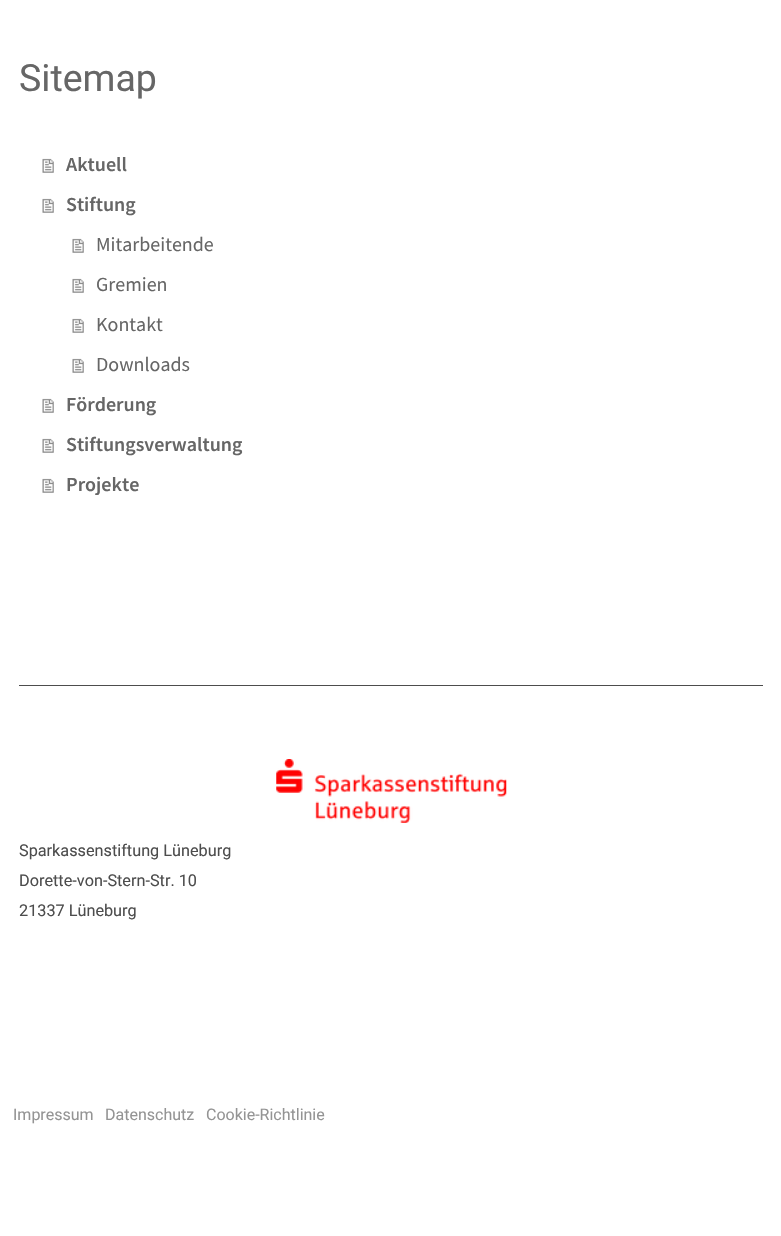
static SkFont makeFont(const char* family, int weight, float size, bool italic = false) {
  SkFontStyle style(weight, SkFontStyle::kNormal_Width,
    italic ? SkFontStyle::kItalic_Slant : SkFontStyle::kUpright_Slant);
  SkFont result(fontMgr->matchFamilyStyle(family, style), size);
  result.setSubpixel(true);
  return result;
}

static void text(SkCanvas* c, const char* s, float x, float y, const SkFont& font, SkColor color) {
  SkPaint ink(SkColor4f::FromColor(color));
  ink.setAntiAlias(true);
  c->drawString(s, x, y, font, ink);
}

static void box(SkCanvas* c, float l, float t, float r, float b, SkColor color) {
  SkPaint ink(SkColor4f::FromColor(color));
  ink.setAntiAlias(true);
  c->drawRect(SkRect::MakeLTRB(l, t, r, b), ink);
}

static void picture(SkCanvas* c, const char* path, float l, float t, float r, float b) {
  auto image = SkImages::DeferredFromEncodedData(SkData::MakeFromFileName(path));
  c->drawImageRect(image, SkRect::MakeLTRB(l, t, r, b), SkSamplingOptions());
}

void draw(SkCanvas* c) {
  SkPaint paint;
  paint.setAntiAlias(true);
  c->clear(0xffffffff);
  SkFont face1 = makeFont("Roboto", 400, 37.5f);
  text(c, "Sitemap", 19, 91, face1, 0xff666666);
  picture(c, "img_01.png", 42, 158, 54, 173);
  SkFont face2 = makeFont("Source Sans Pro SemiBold", 600, 20);
  text(c, "Aktuell", 66, 171, face2, 0xff666666);
  picture(c, "img_01.png", 42, 198, 54, 213);
  text(c, "Stiftung", 66, 211, face2, 0xff666666);
  picture(c, "img_01.png", 72, 238, 84, 253);
  SkFont face3 = makeFont("Source Sans Pro", 400, 20);
  text(c, "Mitarbeitende", 96, 251, face3, 0xff666666);
  picture(c, "img_01.png", 72, 278, 84, 293);
  text(c, "Gremien", 96, 291, face3, 0xff666666);
  picture(c, "img_01.png", 72, 318, 84, 333);
  text(c, "Kontakt", 96, 331, face3, 0xff666666);
  picture(c, "img_01.png", 72, 358, 84, 373);
  text(c, "Downloads", 96, 371, face3, 0xff666666);
  picture(c, "img_01.png", 42, 398, 54, 413);
  text(c, "Förderung", 66, 411, face2, 0xff666666);
  picture(c, "img_01.png", 42, 438, 54, 453);
  text(c, "Stiftungsverwaltung", 66, 451, face2, 0xff666666);
  picture(c, "img_01.png", 42, 478, 54, 493);
  text(c, "Projekte", 66, 491, face2, 0xff666666);
  box(c, 19, 685, 763, 686, 0xff4d4d4d);
  picture(c, "img_02.png", 276, 759, 507, 823);
  SkFont face4 = makeFont("Roboto", 400, 16.25f);
  text(c, "Sparkassenstiftung Lüneburg", 19, 856, face4, 0xff4d4d4d);
  text(c, "Dorette-von-Stern-Str. 10", 19, 886, face4, 0xff4d4d4d);
  text(c, "21337 Lüneburg", 19, 916, face4, 0xff4d4d4d);
  SkFont face5 = makeFont("Roboto", 400, 16);
  text(c, "Impressum", 13, 1120, face5, 0xff949494);
  text(c, "Datenschutz", 105, 1120, face5, 0xff949494);
  text(c, "Cookie-Richtlinie", 206, 1120, face5, 0xff949494);
}
